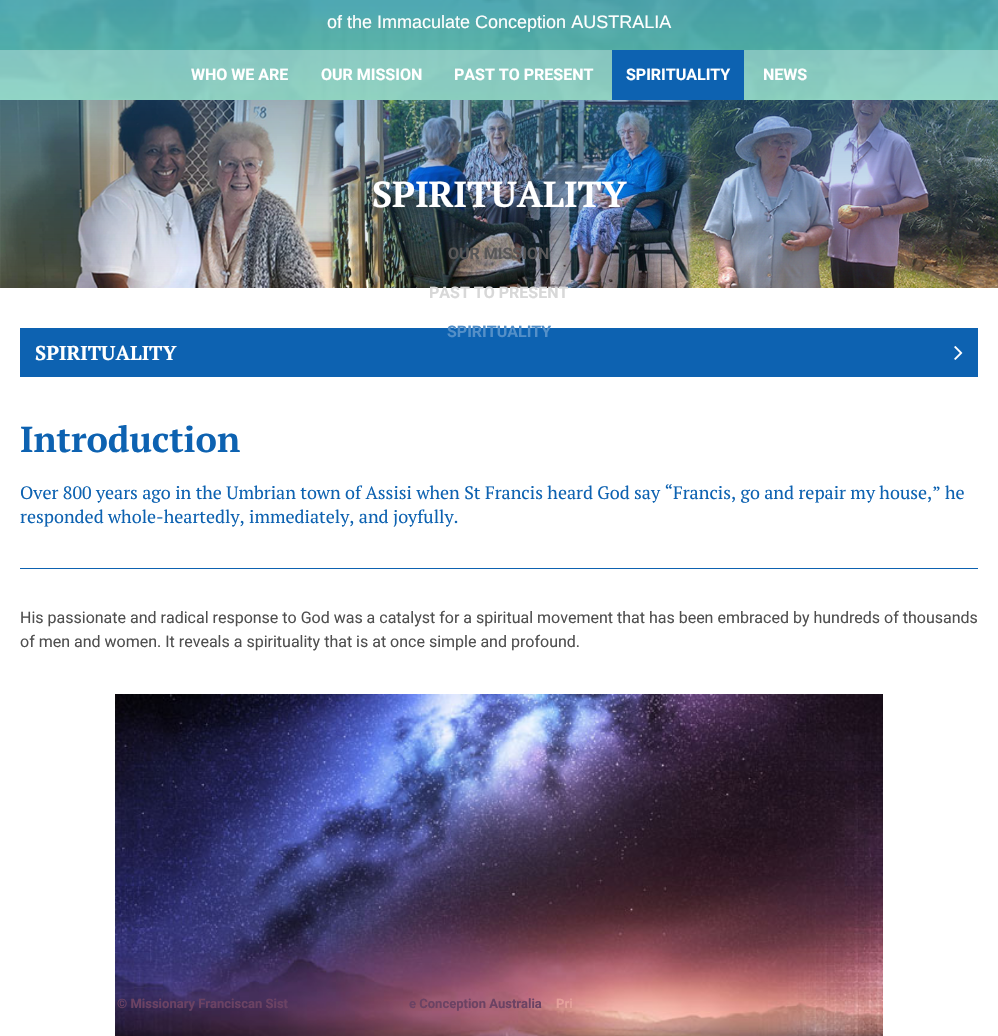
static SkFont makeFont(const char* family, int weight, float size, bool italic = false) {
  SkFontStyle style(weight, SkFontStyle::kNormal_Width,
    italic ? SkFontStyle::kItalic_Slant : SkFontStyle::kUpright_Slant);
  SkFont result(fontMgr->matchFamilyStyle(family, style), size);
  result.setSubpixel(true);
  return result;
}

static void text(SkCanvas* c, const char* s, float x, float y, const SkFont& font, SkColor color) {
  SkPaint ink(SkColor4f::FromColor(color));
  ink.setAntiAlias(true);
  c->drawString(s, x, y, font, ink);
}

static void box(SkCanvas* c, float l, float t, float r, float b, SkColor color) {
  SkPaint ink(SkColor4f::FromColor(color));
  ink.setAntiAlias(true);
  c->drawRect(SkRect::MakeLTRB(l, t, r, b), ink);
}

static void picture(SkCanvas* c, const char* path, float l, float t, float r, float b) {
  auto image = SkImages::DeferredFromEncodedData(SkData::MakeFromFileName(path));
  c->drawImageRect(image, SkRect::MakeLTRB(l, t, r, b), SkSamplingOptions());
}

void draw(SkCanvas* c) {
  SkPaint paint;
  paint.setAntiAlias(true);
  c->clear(0xffffffff);
  picture(c, "img_01.png", 0, 0, 998, 100);
  {
    const SkColor colors[] = {0xcc0d62b1, 0xcc3bb59a};
    const float stops[] = {0, 1};
    const SkPoint ends[] = {{499, -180}, {499, 100}};
    paint.setShader(SkGradientShader::MakeLinear(ends, colors, stops, 2, SkTileMode::kClamp));
    paint.setAlpha(255);
  }
  c->drawRect(SkRect::MakeLTRB(0, 0, 998, 100), paint);
  SkFont face1 = makeFont("Liberation Sans", 400, 18);
  text(c, "of the Immaculate Conception AUSTRALIA", 327, 28, face1, 0xffffffff);
  box(c, 0, 50, 998, 100, 0x4dffffff);
  SkFont face2 = makeFont("Roboto", 700, 16);
  text(c, "WHO WE ARE", 191, 80, face2, 0xffffffff);
  text(c, "OUR MISSION", 321, 80, face2, 0xffffffff);
  text(c, "PAST TO PRESENT", 454, 80, face2, 0xffffffff);
  box(c, 612, 50, 744, 100, 0xff0d62b1);
  text(c, "SPIRITUALITY", 626, 80, face2, 0xffffffff);
  text(c, "NEWS", 763, 80, face2, 0xffffffff);
  picture(c, "img_02.png", 0, 100, 998, 288);
  text(c, "OUR MISSION", 448, 259, face2, 0xff585758);
  text(c, "PAST TO PRESENT", 429, 298, face2, 0xffd8d8d8);
  box(c, 20, 328, 978, 377, 0xff0d62b1);
  text(c, "SPIRITUALITY", 447, 337, face2, 0xff538fc8);
  picture(c, "img_04.png", 115, 694, 883, 1036);
  SkFont face3 = makeFont("Roboto", 700, 13);
  text(c, "© Missionary Franciscan Sist", 117, 1008, face3, 0xff6b4263);
  text(c, "e Conception Australia", 409, 1008, face3, 0xff6b4263);
  text(c, "Pri", 556, 1008, face3, 0xffe6a19b);
  SkFont face4 = makeFont("PT Serif", 700, 36);
  text(c, "SPIRITUALITY", 372, 207, face4, 0xffffffff);
  SkFont face5 = makeFont("PT Serif", 700, 20);
  text(c, "SPIRITUALITY", 35, 360, face5, 0xffffffff);
  picture(c, "img_03.png", 954, 346, 963, 360);
  text(c, "Introduction", 20, 452, face4, 0xff0d62b1);
  SkFont face6 = makeFont("PT Serif", 400, 18);
  text(c, "Over 800 years ago in the Umbrian town of Assisi when St Francis heard God say “Francis, go and repair my house,” he", 20, 499, face6, 0xff0d62b1);
  text(c, "responded whole-heartedly, immediately, and joyfully.", 20, 523, face6, 0xff0d62b1);
  box(c, 20, 568, 978, 569, 0xff0d62b1);
  SkFont face7 = makeFont("Roboto", 400, 16);
  text(c, "His passionate and radical response to God was a catalyst for a spiritual movement that has been embraced by hundreds of thousands", 20, 623, face7, 0xff4f4f4f);
  text(c, "of men and women. It reveals a spirituality that is at once simple and profound.", 20, 647, face7, 0xff4f4f4f);
}
